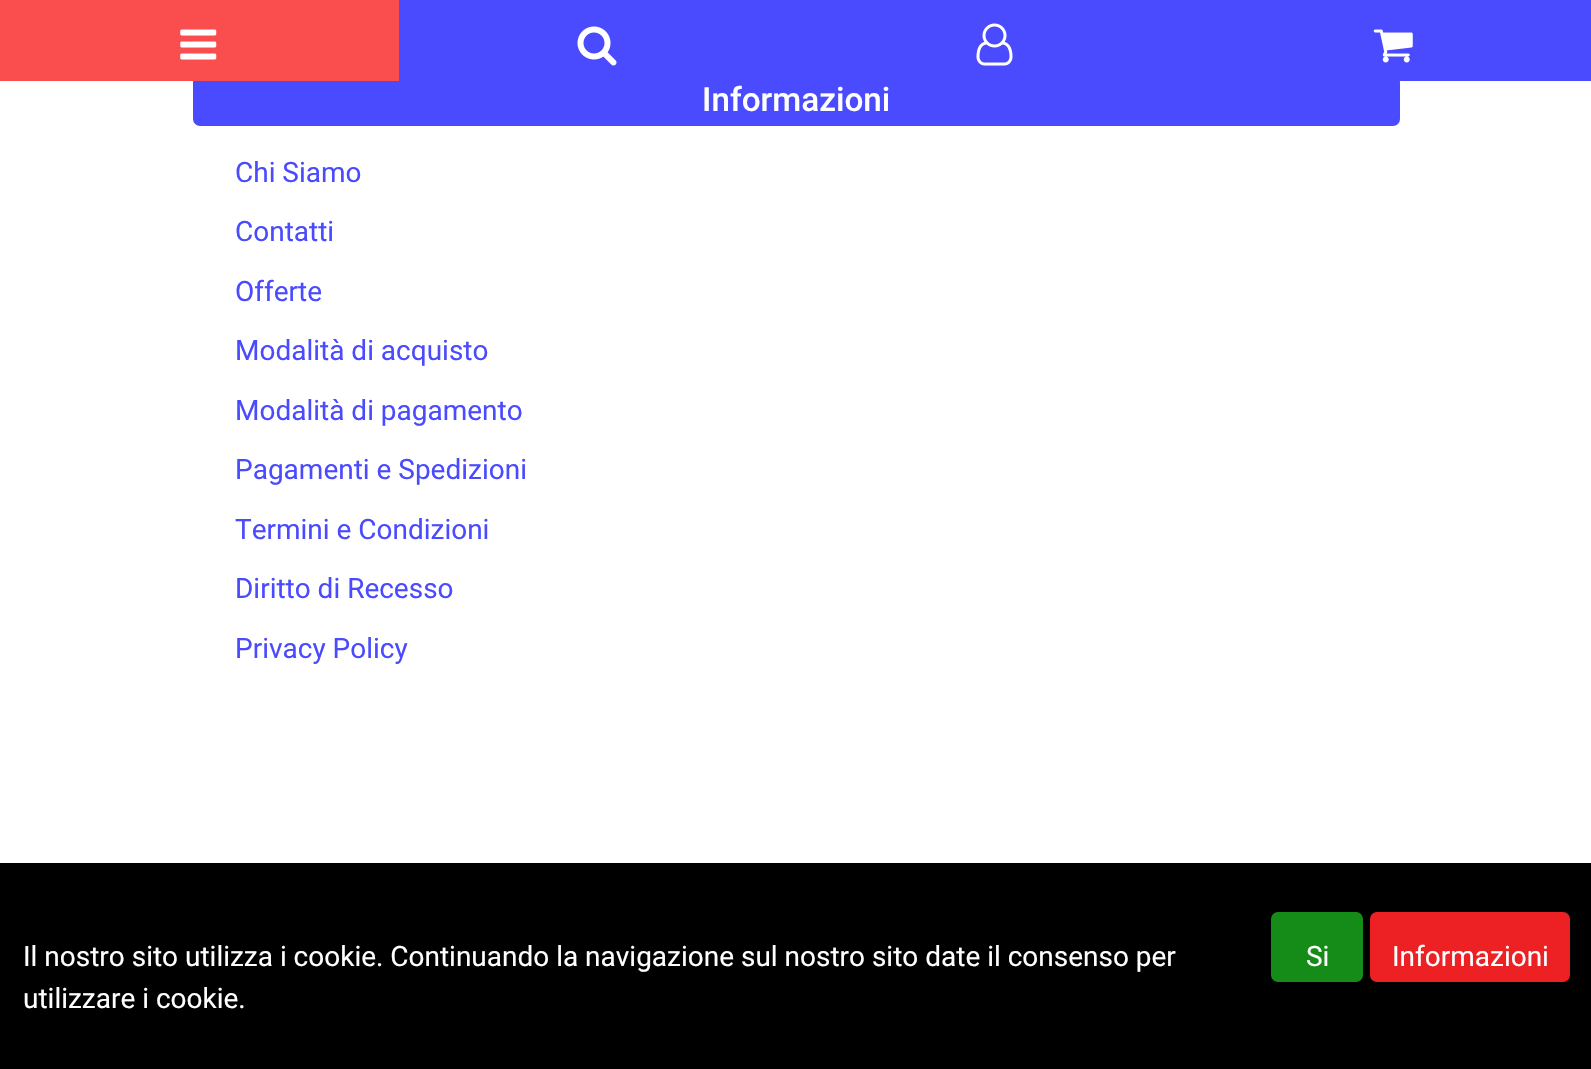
static SkFont makeFont(const char* family, int weight, float size, bool italic = false) {
  SkFontStyle style(weight, SkFontStyle::kNormal_Width,
    italic ? SkFontStyle::kItalic_Slant : SkFontStyle::kUpright_Slant);
  SkFont result(fontMgr->matchFamilyStyle(family, style), size);
  result.setSubpixel(true);
  return result;
}

static void text(SkCanvas* c, const char* s, float x, float y, const SkFont& font, SkColor color) {
  SkPaint ink(SkColor4f::FromColor(color));
  ink.setAntiAlias(true);
  c->drawString(s, x, y, font, ink);
}

static void box(SkCanvas* c, float l, float t, float r, float b, SkColor color) {
  SkPaint ink(SkColor4f::FromColor(color));
  ink.setAntiAlias(true);
  c->drawRect(SkRect::MakeLTRB(l, t, r, b), ink);
}

static void roundBox(SkCanvas* c, float l, float t, float r, float b, float radius, SkColor color) {
  SkPaint ink(SkColor4f::FromColor(color));
  ink.setAntiAlias(true);
  c->drawRoundRect(SkRect::MakeLTRB(l, t, r, b), radius, radius, ink);
}

static void picture(SkCanvas* c, const char* path, float l, float t, float r, float b) {
  auto image = SkImages::DeferredFromEncodedData(SkData::MakeFromFileName(path));
  c->drawImageRect(image, SkRect::MakeLTRB(l, t, r, b), SkSamplingOptions());
}

void draw(SkCanvas* c) {
  SkPaint paint;
  paint.setAntiAlias(true);
  c->clear(0xffffffff);
  roundBox(c, 193, 75, 1400, 126, 7, 0xff4a4aff);
  box(c, 0, 0, 399, 81, 0xfffa4e4e);
  picture(c, "img_01.png", 180, 29, 217, 60);
  box(c, 399, 0, 1195, 75, 0xff4a4aff);
  picture(c, "img_02.png", 577, 26, 617, 66);
  box(c, 1195, 0, 1591, 81, 0xff4a4aff);
  picture(c, "img_03.png", 1373, 29, 1413, 63);
  picture(c, "img_04.png", 976, 23, 1013, 66);
  SkFont face1 = makeFont("Roboto", 500, 33.25f);
  text(c, "Informazioni", 702, 111, face1, 0xffffffff);
  SkFont face2 = makeFont("Roboto", 400, 28);
  text(c, "Chi Siamo", 235, 182, face2, 0xff4a4aff);
  text(c, "Contatti", 235, 241, face2, 0xff4a4aff);
  text(c, "Offerte", 235, 301, face2, 0xff4a4aff);
  text(c, "Modalità di acquisto", 235, 360, face2, 0xff4a4aff);
  text(c, "Modalità di pagamento", 235, 420, face2, 0xff4a4aff);
  text(c, "Pagamenti e Spedizioni", 235, 479, face2, 0xff4a4aff);
  text(c, "Termini e Condizioni", 235, 539, face2, 0xff4a4aff);
  text(c, "Diritto di Recesso", 235, 598, face2, 0xff4a4aff);
  text(c, "Privacy Policy", 235, 658, face2, 0xff4a4aff);
  box(c, 0, 863, 1591, 1069, 0xff000000);
  text(c, "Il nostro sito utilizza i cookie. Continuando la navigazione sul nostro sito date il consenso per", 23, 966, face2, 0xffffffff);
  text(c, "utilizzare i cookie.", 23, 1008, face2, 0xffffffff);
  roundBox(c, 1271, 912, 1363, 982, 7, 0xff158c17);
  text(c, "Si", 1306, 966, face2, 0xffffffff);
  roundBox(c, 1370, 912, 1570, 982, 7, 0xffed2024);
  text(c, "Informazioni", 1392, 966, face2, 0xffffffff);
}
